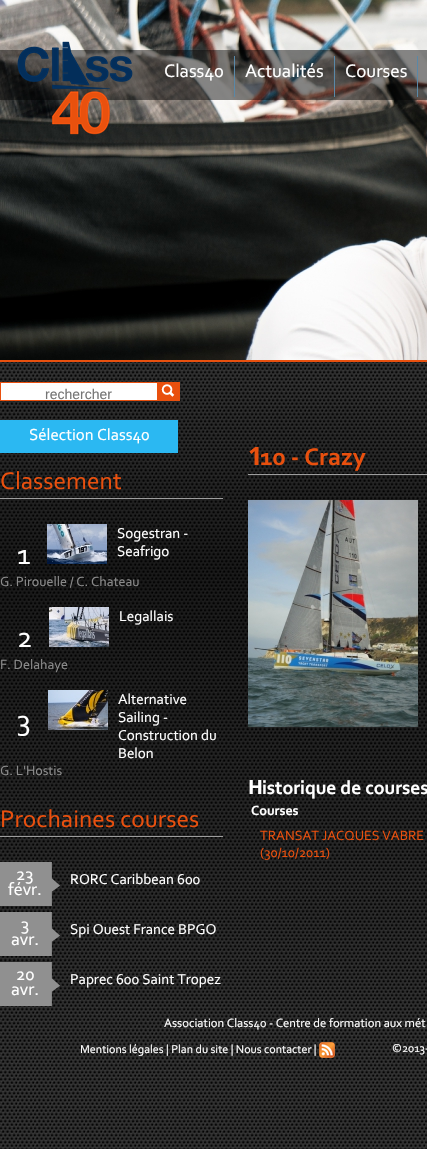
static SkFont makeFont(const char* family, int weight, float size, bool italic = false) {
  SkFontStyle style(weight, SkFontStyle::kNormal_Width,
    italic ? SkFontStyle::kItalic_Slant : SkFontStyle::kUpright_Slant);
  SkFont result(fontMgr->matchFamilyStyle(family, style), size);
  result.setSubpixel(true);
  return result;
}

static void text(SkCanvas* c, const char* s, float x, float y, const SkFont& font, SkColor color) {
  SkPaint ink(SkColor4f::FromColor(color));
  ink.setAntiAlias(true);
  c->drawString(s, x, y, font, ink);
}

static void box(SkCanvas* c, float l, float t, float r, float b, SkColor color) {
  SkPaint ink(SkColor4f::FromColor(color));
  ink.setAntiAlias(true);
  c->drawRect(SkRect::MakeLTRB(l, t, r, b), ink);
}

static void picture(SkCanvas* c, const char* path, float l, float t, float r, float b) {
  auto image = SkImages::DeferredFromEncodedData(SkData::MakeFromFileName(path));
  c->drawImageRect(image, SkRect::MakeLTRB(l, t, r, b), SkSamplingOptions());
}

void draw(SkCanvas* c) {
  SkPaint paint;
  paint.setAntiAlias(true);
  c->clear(0xffffffff);
  picture(c, "img_01.png", 0, 362, 427, 1149);
  box(c, 0, 360, 427, 362, 0xffe9500e);
  picture(c, "img_02.png", 0, 0, 427, 360);
  box(c, 0, 50, 427, 100, 0x78000000);
  picture(c, "img_03.png", 17, 41, 133, 135);
  box(c, 234, 56, 235, 97, 0xff5a88a7);
  SkFont face1 = makeFont("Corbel", 400, 19);
  text(c, "Class40", 164, 77, face1, 0xffffffff);
  box(c, 334, 56, 335, 97, 0xff5a88a7);
  text(c, "Actualités", 245, 77, face1, 0xffffffff);
  box(c, 417, 56, 418, 97, 0xff5a88a7);
  text(c, "Courses", 345, 77, face1, 0xffffffff);
  picture(c, "img_04.png", 0, 382, 180, 401);
  SkFont face2 = makeFont("Liberation Sans", 400, 14);
  text(c, "rechercher", 45, 399, face2, 0xff757575);
  picture(c, "img_05.png", 161, 384, 175, 397);
  box(c, 0, 420, 178, 453, 0xff2bb8f2);
  SkFont face3 = makeFont("Corbel", 400, 16.75f);
  text(c, "Sélection Class40", 29, 440, face3, 0xffffffff);
  box(c, 0, 498, 223, 499, 0xff9d9d9d);
  SkFont face4 = makeFont("Corbel", 400, 25.25f);
  text(c, "Classement", 0, 489, face4, 0xffe9500e);
  SkFont face5 = makeFont("Corbel", 400, 30);
  text(c, "1", 17, 564, face5, 0xffffffff);
  picture(c, "img_06.png", 47, 524, 107, 564);
  SkFont face6 = makeFont("Corbel", 400, 15);
  text(c, "Sogestran -", 117, 538, face6, 0xffffffff);
  text(c, "Seafrigo", 117, 556, face6, 0xffffffff);
  SkFont face7 = makeFont("Corbel", 400, 14);
  text(c, "G. Pirouelle / C. Chateau", 0, 586, face7, 0xff8b8b8b);
  picture(c, "img_07.png", 49, 607, 109, 647);
  text(c, "Legallais", 119, 621, face6, 0xffffffff);
  text(c, "2", 17, 647, face5, 0xffffffff);
  text(c, "F. Delahaye", 0, 669, face7, 0xff8b8b8b);
  text(c, "3", 17, 730, face5, 0xffffffff);
  picture(c, "img_08.png", 48, 690, 108, 730);
  text(c, "Alternative", 118, 704, face6, 0xffffffff);
  text(c, "Sailing -", 118, 722, face6, 0xffffffff);
  text(c, "Construction du", 118, 740, face6, 0xffffffff);
  text(c, "Belon", 118, 758, face6, 0xffffffff);
  text(c, "G. L'Hostis", 0, 775, face7, 0xff8b8b8b);
  box(c, 0, 836, 223, 837, 0xff9d9d9d);
  text(c, "Prochaines courses", 0, 827, face4, 0xffe9500e);
  picture(c, "img_09.png", 0, 862, 60, 906);
  SkFont face8 = makeFont("Corbel", 400, 18);
  text(c, "23", 16, 880, face8, 0xffffffff);
  text(c, "févr.", 8, 895, face8, 0xffffffff);
  text(c, "RORC Caribbean 600", 70, 884, face6, 0xffffffff);
  picture(c, "img_10.png", 0, 912, 60, 956);
  text(c, "3", 21, 930, face8, 0xffffffff);
  text(c, "avr.", 11, 945, face8, 0xffffffff);
  text(c, "Spi Ouest France BPGO", 70, 934, face6, 0xffffffff);
  picture(c, "img_11.png", 0, 962, 60, 1006);
  text(c, "20", 16, 980, face8, 0xffffffff);
  text(c, "avr.", 11, 995, face8, 0xffffffff);
  text(c, "Paprec 600 Saint Tropez", 70, 984, face6, 0xffffffff);
  box(c, 248, 474, 427, 475, 0xff9d9d9d);
  SkFont face9 = makeFont("Noto Sans", 700, 25.25f);
  text(c, "1", 248, 465, face9, 0xffe9500e);
  SkFont face10 = makeFont("Corbel", 700, 25.25f);
  text(c, "10 - Crazy", 260, 465, face10, 0xffe9500e);
  picture(c, "img_12.png", 248, 500, 418, 727);
  SkFont face11 = makeFont("Noto Sans", 700, 19.5f);
  text(c, "H", 248, 794, face11, 0xffffffff);
  SkFont face12 = makeFont("Corbel", 700, 19.5f);
  text(c, "istorique de courses", 262, 794, face12, 0xffffffff);
  SkFont face13 = makeFont("Corbel", 700, 14);
  text(c, "Courses", 251, 815, face13, 0xffffffff);
  text(c, "TRANSAT JACQUES VABRE", 260, 840, face7, 0xffe9500e);
  text(c, "(30/10/2011)", 260, 857, face7, 0xffe9500e);
  SkFont face14 = makeFont("Corbel", 400, 12.6f);
  text(c, "Association Class40 - Centre de formation aux mét", 164, 1027, face14, 0xffffffff);
  SkFont face15 = makeFont("Corbel", 400, 12);
  text(c, "Mentions légales | Plan du site | Nous contacter |", 80, 1053, face15, 0xffffffff);
  picture(c, "img_13.png", 319, 1042, 335, 1058);
  text(c, "©2013-", 392, 1052, face15, 0xffffffff);
}
